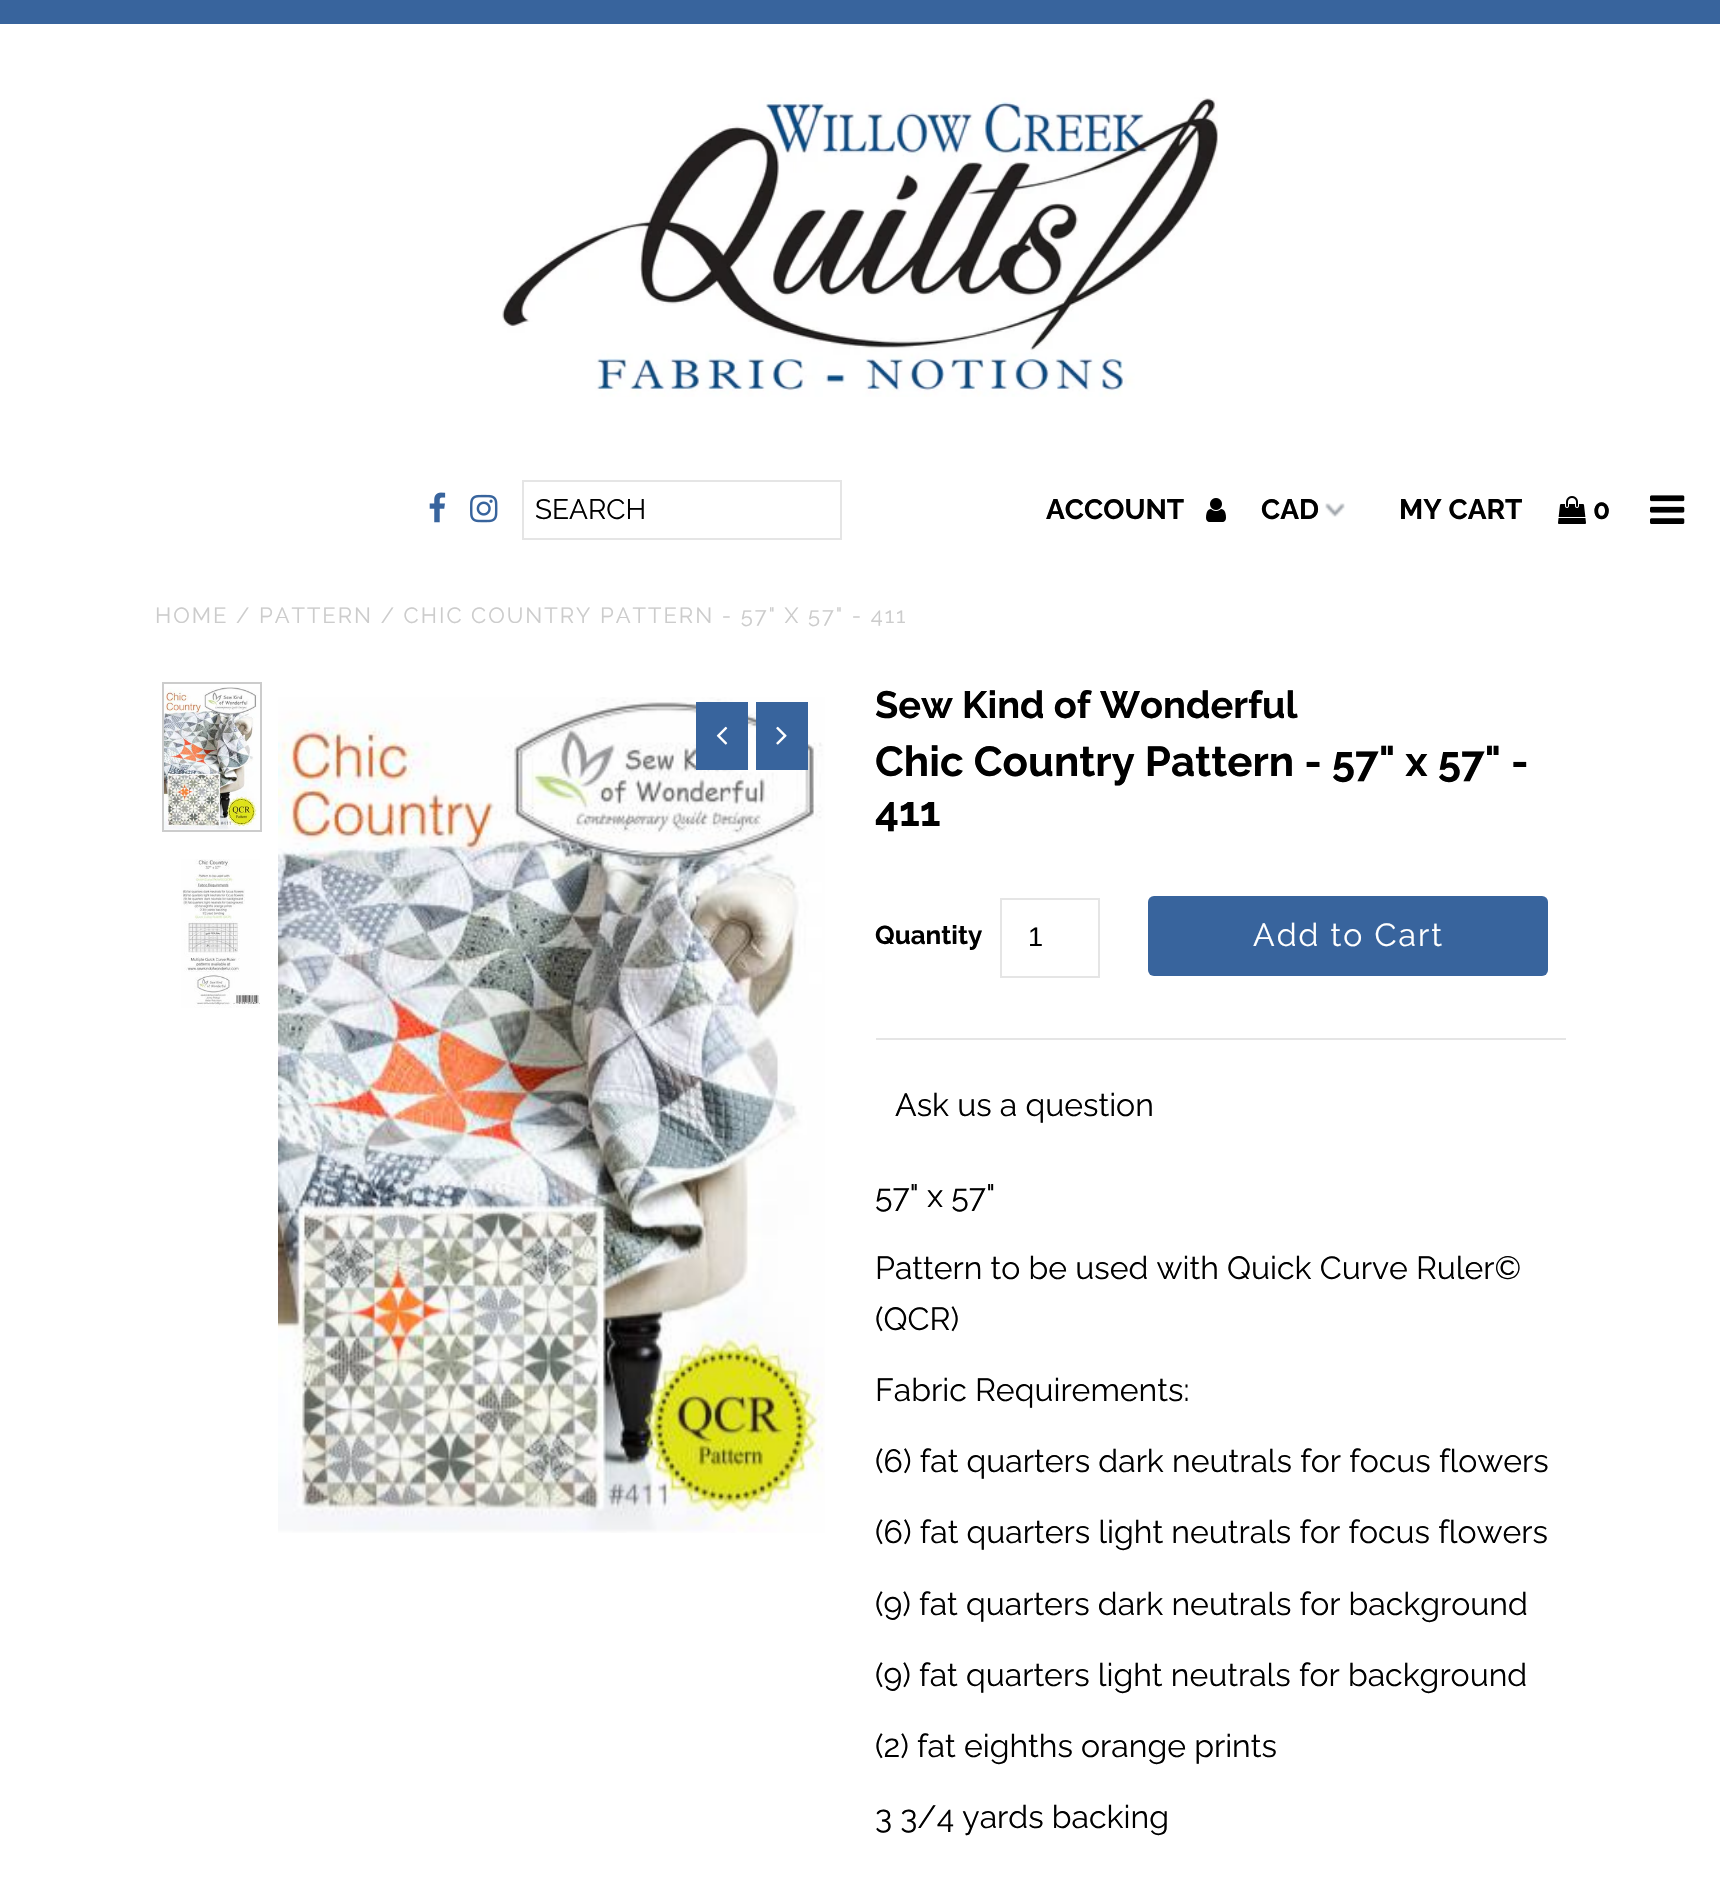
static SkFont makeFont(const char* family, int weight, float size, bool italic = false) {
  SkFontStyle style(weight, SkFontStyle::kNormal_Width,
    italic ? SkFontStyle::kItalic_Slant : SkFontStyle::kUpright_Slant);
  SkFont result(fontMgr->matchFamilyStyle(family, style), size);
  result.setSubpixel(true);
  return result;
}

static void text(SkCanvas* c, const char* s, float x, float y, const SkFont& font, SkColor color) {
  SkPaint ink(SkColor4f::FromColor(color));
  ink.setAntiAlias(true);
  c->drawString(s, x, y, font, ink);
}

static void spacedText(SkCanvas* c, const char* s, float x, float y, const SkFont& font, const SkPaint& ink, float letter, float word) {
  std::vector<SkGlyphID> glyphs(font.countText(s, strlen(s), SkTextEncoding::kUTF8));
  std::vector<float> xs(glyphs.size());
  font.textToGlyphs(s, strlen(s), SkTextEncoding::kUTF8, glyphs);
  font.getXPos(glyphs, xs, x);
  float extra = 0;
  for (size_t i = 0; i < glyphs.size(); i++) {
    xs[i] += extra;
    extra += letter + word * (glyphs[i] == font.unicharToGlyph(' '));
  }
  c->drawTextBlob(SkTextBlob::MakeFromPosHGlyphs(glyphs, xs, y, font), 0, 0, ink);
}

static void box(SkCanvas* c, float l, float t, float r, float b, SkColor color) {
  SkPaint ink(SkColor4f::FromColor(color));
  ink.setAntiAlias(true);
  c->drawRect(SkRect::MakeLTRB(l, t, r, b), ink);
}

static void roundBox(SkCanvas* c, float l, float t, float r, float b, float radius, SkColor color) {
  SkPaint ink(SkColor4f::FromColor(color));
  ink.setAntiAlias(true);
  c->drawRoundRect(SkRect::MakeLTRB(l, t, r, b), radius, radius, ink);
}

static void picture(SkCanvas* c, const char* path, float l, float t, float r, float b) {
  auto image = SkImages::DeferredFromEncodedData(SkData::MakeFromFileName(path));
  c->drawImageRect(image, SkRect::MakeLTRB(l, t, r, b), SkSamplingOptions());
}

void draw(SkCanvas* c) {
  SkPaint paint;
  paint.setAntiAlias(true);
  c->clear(0xffffffff);
  box(c, 0, 0, 1720, 24, 0xff38649d);
  picture(c, "img_01.png", 502, 97, 1218, 397);
  picture(c, "img_02.png", 429, 492, 446, 523);
  picture(c, "img_03.png", 470, 494, 498, 523);
  paint.setStyle(SkPaint::kStroke_Style);
  paint.setStrokeWidth(2);
  paint.setColor(0xffe5e5e5);
  c->drawRect(SkRect::MakeLTRB(523, 481, 841, 539), paint);
  SkFont face1 = makeFont("Raleway", 400, 28);
  text(c, "SEARCH", 535, 519, face1, 0xff000000);
  SkFont face2 = makeFont("Raleway", 700, 28);
  text(c, "ACCOUNT", 1046, 519, face2, 0xff000000);
  picture(c, "img_04.png", 1206, 498, 1226, 522);
  picture(c, "img_05.png", 1325, 503, 1345, 517);
  text(c, "CAD", 1261, 519, face2, 0xff000000);
  text(c, "MY CART", 1399, 519, face2, 0xff000000);
  picture(c, "img_06.png", 1558, 496, 1586, 524);
  text(c, "0", 1593, 519, face2, 0xff000000);
  picture(c, "img_07.png", 1650, 495, 1685, 524);
  SkFont face3 = makeFont("Raleway", 400, 22);
  paint.setStyle(SkPaint::kFill_Style);
  paint.setColor(0xffcccccc);
  spacedText(c, "HOME / PATTERN / CHIC COUNTRY PATTERN - 57\" X 57\" - 411", 155, 623, face3, paint, 2, 0);
  paint.setStyle(SkPaint::kStroke_Style);
  c->drawRect(SkRect::MakeLTRB(163, 683, 261, 831), paint);
  picture(c, "img_08.png", 164, 687, 260, 830);
  picture(c, "img_09.png", 181, 859, 260, 1008);
  picture(c, "img_10.png", 278, 697, 825, 1533);
  box(c, 696, 702, 748, 770, 0xff38649d);
  picture(c, "img_11.png", 716, 726, 728, 745);
  box(c, 756, 702, 808, 770, 0xff38649d);
  picture(c, "img_12.png", 776, 726, 787, 745);
  SkFont face4 = makeFont("Raleway", 700, 38);
  text(c, "Sew Kind of Wonderful", 875, 718, face4, 0xff000000);
  SkFont face5 = makeFont("Raleway", 700, 42);
  text(c, "Chic Country Pattern - 57\" x 57\" -", 875, 776, face5, 0xff000000);
  text(c, "411", 875, 826, face5, 0xff000000);
  box(c, 876, 1038, 1566, 1040, 0xffe5e5e5);
  SkFont face6 = makeFont("Raleway", 700, 26);
  text(c, "Quantity", 875, 944, face6, 0xff000000);
  paint.setColor(0xffe5e5e5);
  c->drawRect(SkRect::MakeLTRB(1001, 899, 1099, 977), paint);
  SkFont face7 = makeFont("Liberation Sans", 400, 27);
  text(c, "1", 1028, 946, face7, 0xff000000);
  roundBox(c, 1148, 896, 1548, 976, 6, 0xff38649d);
  SkFont face8 = makeFont("Raleway", 400, 32);
  paint.setStyle(SkPaint::kFill_Style);
  paint.setColor(0xffffffff);
  spacedText(c, "Add to Cart", 1253, 946, face8, paint, 2, 0);
  text(c, "Ask us a question", 895, 1116, face8, 0xff000000);
  text(c, "57\" x 57\"", 875, 1207, face8, 0xff000000);
  text(c, "Pattern to be used with Quick Curve Ruler©", 875, 1279, face8, 0xff000000);
  text(c, "(QCR)", 875, 1330, face8, 0xff000000);
  text(c, "Fabric Requirements:", 875, 1401, face8, 0xff000000);
  text(c, "(6) fat quarters dark neutrals for focus flowers", 875, 1472, face8, 0xff000000);
  text(c, "(6) fat quarters light neutrals for focus flowers", 875, 1543, face8, 0xff000000);
  text(c, "(9) fat quarters dark neutrals for background", 875, 1615, face8, 0xff000000);
  text(c, "(9) fat quarters light neutrals for background", 875, 1686, face8, 0xff000000);
  text(c, "(2) fat eighths orange prints", 875, 1757, face8, 0xff000000);
  text(c, "3 3/4 yards backing", 875, 1828, face8, 0xff000000);
}
